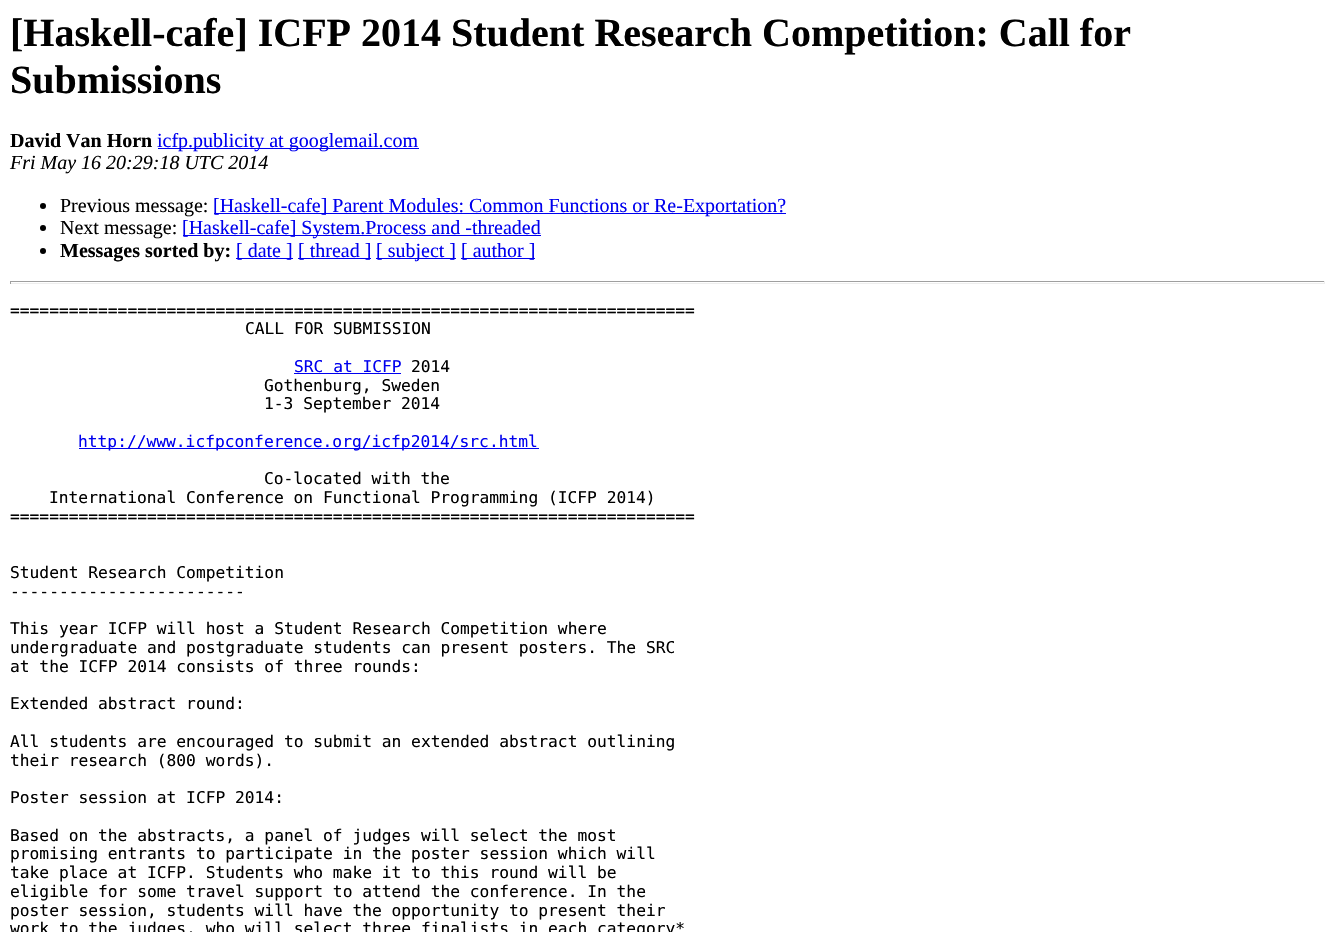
static SkFont makeFont(const char* family, int weight, float size, bool italic = false) {
  SkFontStyle style(weight, SkFontStyle::kNormal_Width,
    italic ? SkFontStyle::kItalic_Slant : SkFontStyle::kUpright_Slant);
  SkFont result(fontMgr->matchFamilyStyle(family, style), size);
  result.setSubpixel(true);
  return result;
}

static void text(SkCanvas* c, const char* s, float x, float y, const SkFont& font, SkColor color) {
  SkPaint ink(SkColor4f::FromColor(color));
  ink.setAntiAlias(true);
  c->drawString(s, x, y, font, ink);
}

static void box(SkCanvas* c, float l, float t, float r, float b, SkColor color) {
  SkPaint ink(SkColor4f::FromColor(color));
  ink.setAntiAlias(true);
  c->drawRect(SkRect::MakeLTRB(l, t, r, b), ink);
}

void draw(SkCanvas* c) {
  SkPaint paint;
  paint.setAntiAlias(true);
  c->clear(0xffffffff);
  SkFont face1 = makeFont("Liberation Serif", 700, 40);
  text(c, "[Haskell-cafe] ICFP 2014 Student Research Competition: Call for", 10, 46, face1, 0xff000000);
  text(c, "Submissions", 10, 93, face1, 0xff000000);
  SkFont face2 = makeFont("Liberation Serif", 700, 20);
  text(c, "David Van Horn", 10, 147, face2, 0xff000000);
  box(c, 158, 148, 419, 149, 0xff0000ee);
  SkFont face3 = makeFont("Liberation Serif", 400, 20);
  text(c, "icfp.publicity at googlemail.com", 157, 147, face3, 0xff0000ee);
  SkFont face4 = makeFont("Liberation Serif", 400, 20, true);
  text(c, "Fri May 16 20:29:18 UTC 2014", 10, 169, face4, 0xff000000);
  paint.setColor(0xff000000);
  c->drawCircle(43, 206, 3, paint);
  text(c, "Previous message:", 60, 212, face3, 0xff000000);
  box(c, 214, 213, 786, 214, 0xff0000ee);
  text(c, "[Haskell-cafe] Parent Modules: Common Functions or Re-Exportation?", 213, 212, face3, 0xff0000ee);
  c->drawCircle(43, 228, 3, paint);
  text(c, "Next message:", 60, 234, face3, 0xff000000);
  box(c, 183, 235, 541, 236, 0xff0000ee);
  text(c, "[Haskell-cafe] System.Process and -threaded", 182, 234, face3, 0xff0000ee);
  c->drawCircle(43, 251, 3, paint);
  text(c, "Messages sorted by:", 60, 257, face2, 0xff000000);
  box(c, 236, 258, 293, 259, 0xff0000ee);
  text(c, "[ date ]", 236, 257, face3, 0xff0000ee);
  box(c, 298, 258, 371, 259, 0xff0000ee);
  text(c, "[ thread ]", 298, 257, face3, 0xff0000ee);
  box(c, 376, 258, 456, 259, 0xff0000ee);
  text(c, "[ subject ]", 376, 257, face3, 0xff0000ee);
  box(c, 461, 258, 535, 259, 0xff0000ee);
  text(c, "[ author ]", 461, 257, face3, 0xff0000ee);
  box(c, 10, 281, 1325, 282, 0xff9f9f9f);
  box(c, 1324, 281, 1325, 284, 0xffeeeeee);
  box(c, 10, 283, 1325, 284, 0xffeeeeee);
  box(c, 10, 281, 11, 284, 0xff9f9f9f);
  SkFont face5 = makeFont("DejaVu Sans Mono", 400, 16.25f);
  text(c, "======================================================================", 10, 316, face5, 0xff000000);
  text(c, "CALL FOR SUBMISSION", 245, 334, face5, 0xff000000);
  text(c, "SRC at ICFP", 294, 372, face5, 0xff0000ee);
  box(c, 294, 373, 401, 374, 0xff0000ee);
  text(c, "2014", 411, 372, face5, 0xff000000);
  text(c, "Gothenburg, Sweden", 264, 391, face5, 0xff000000);
  text(c, "1-3 September 2014", 264, 409, face5, 0xff000000);
  box(c, 79, 448, 539, 449, 0xff0000ee);
  text(c, "http://www.icfpconference.org/icfp2014/src.html", 78, 447, face5, 0xff0000ee);
  text(c, "Co-located with the", 264, 484, face5, 0xff000000);
  text(c, "International Conference on Functional Programming (ICFP 2014)", 49, 503, face5, 0xff000000);
  text(c, "======================================================================", 10, 522, face5, 0xff000000);
  text(c, "Student Research Competition", 10, 578, face5, 0xff000000);
  text(c, "------------------------", 10, 597, face5, 0xff000000);
  text(c, "This year ICFP will host a Student Research Competition where", 10, 634, face5, 0xff000000);
  text(c, "undergraduate and postgraduate students can present posters. The SRC", 10, 653, face5, 0xff000000);
  text(c, "at the ICFP 2014 consists of three rounds:", 10, 672, face5, 0xff000000);
  text(c, "Extended abstract round:", 10, 709, face5, 0xff000000);
  text(c, "All students are encouraged to submit an extended abstract outlining", 10, 747, face5, 0xff000000);
  text(c, "their research (800 words).", 10, 766, face5, 0xff000000);
  text(c, "Poster session at ICFP 2014:", 10, 803, face5, 0xff000000);
  text(c, "Based on the abstracts, a panel of judges will select the most", 10, 841, face5, 0xff000000);
  text(c, "promising entrants to participate in the poster session which will", 10, 859, face5, 0xff000000);
  text(c, "take place at ICFP. Students who make it to this round will be", 10, 878, face5, 0xff000000);
  text(c, "eligible for some travel support to attend the conference. In the", 10, 897, face5, 0xff000000);
  text(c, "poster session, students will have the opportunity to present their", 10, 916, face5, 0xff000000);
  text(c, "work to the judges, who will select three finalists in each category*", 10, 934, face5, 0xff000000);
}
